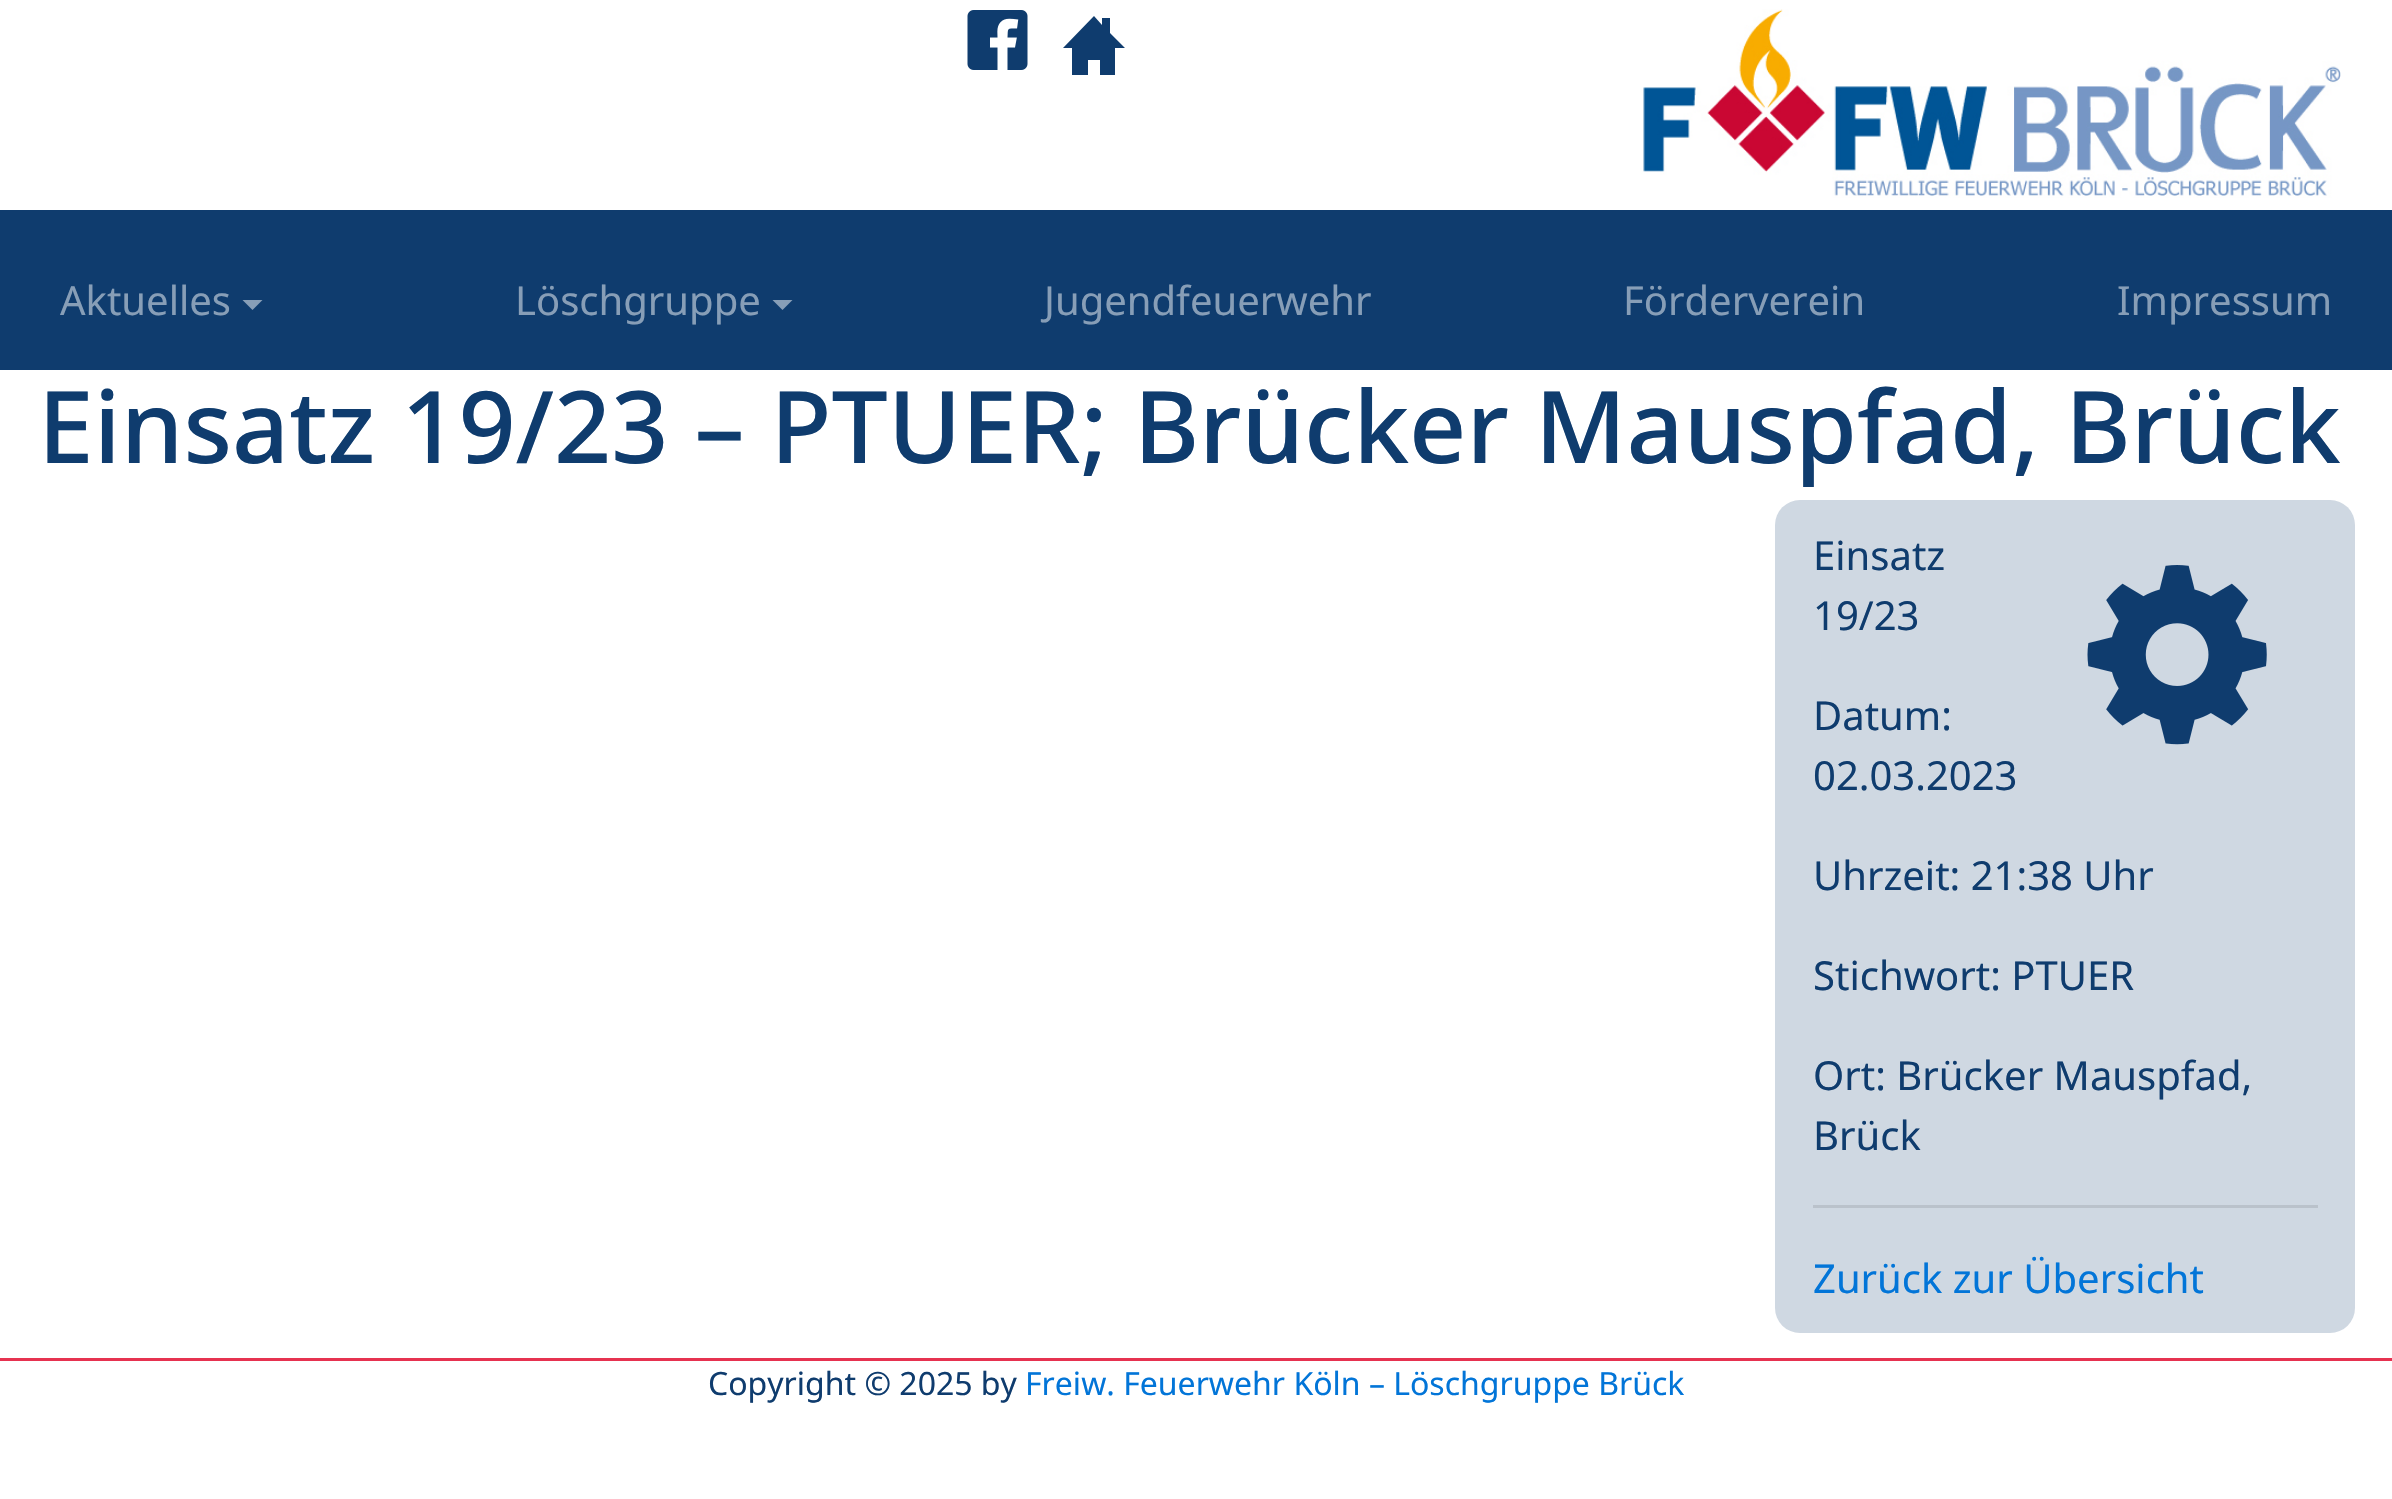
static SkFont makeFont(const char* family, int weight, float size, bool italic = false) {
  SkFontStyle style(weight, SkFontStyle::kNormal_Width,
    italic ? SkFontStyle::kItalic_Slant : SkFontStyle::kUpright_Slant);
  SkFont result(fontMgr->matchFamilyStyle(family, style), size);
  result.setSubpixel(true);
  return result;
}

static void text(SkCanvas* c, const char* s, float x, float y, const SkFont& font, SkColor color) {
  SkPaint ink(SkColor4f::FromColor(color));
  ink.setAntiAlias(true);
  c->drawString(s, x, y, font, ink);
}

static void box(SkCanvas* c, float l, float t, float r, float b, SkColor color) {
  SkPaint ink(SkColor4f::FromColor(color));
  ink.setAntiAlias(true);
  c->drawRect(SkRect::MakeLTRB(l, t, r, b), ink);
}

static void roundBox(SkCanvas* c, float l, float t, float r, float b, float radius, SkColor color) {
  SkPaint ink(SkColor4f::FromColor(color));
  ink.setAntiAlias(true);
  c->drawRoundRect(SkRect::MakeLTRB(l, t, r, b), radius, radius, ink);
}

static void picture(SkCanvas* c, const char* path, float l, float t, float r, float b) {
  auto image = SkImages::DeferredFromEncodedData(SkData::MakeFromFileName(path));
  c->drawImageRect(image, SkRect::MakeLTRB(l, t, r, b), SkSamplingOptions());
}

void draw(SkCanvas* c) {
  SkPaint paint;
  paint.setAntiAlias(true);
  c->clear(0xffffffff);
  picture(c, "img_01.png", 967, 10, 1028, 70);
  paint.setColor(0xff0f3c6e);
  c->drawPath(SkPathBuilder().moveTo(1072, 75).lineTo(1072, 48).lineTo(1063, 48).lineTo(1094, 16).lineTo(1102, 25).lineTo(1102, 18).lineTo(1110, 18).lineTo(1110, 33).lineTo(1125, 48).lineTo(1115, 48).lineTo(1115, 75).lineTo(1100, 75).lineTo(1100, 60).lineTo(1088, 60).lineTo(1088, 75).close().detach(), paint);
  picture(c, "img_02.png", 1640, 9, 2341, 198);
  box(c, 0, 210, 2392, 370, 0xff0f3c6e);
  SkFont face1 = makeFont("Noto Sans", 400, 40);
  text(c, "Aktuelles", 60, 315, face1, 0xff879eb7);
  paint.setColor(0xff879eb7);
  c->drawPath(SkPathBuilder().moveTo(242.5f, 300).lineTo(262.5f, 300).lineTo(252.5f, 310).close().detach(), paint);
  text(c, "Löschgruppe", 515, 315, face1, 0xff879eb7);
  c->drawPath(SkPathBuilder().moveTo(772.5f, 300).lineTo(792.5f, 300).lineTo(782.5f, 310).close().detach(), paint);
  text(c, "Jugendfeuerwehr", 1044, 315, face1, 0xff879eb7);
  text(c, "Förderverein", 1623, 315, face1, 0xff879eb7);
  text(c, "Impressum", 2117, 315, face1, 0xff879eb7);
  SkFont face2 = makeFont("Noto Sans", 500, 100);
  text(c, "Einsatz 19/23 – PTUER; Brücker Mauspfad, Brück", 38, 463, face2, 0xff0f3c6e);
  roundBox(c, 1775, 500, 2355, 1333, 25, 0xffcfd8e2);
  text(c, "Einsatz", 1813, 570, face1, 0xff0f3c6e);
  text(c, "19/23", 1813, 630, face1, 0xff0f3c6e);
  picture(c, "img_03.png", 2087, 565, 2267, 745);
  text(c, "Datum:", 1813, 730, face1, 0xff0f3c6e);
  text(c, "02.03.2023", 1813, 790, face1, 0xff0f3c6e);
  text(c, "Uhrzeit: 21:38 Uhr", 1813, 890, face1, 0xff0f3c6e);
  text(c, "Stichwort: PTUER", 1813, 990, face1, 0xff0f3c6e);
  text(c, "Ort: Brücker Mauspfad,", 1813, 1090, face1, 0xff0f3c6e);
  text(c, "Brück", 1813, 1150, face1, 0xff0f3c6e);
  box(c, 1813, 1205, 2318, 1208, 0xffbac2cb);
  text(c, "Zurück zur Übersicht", 1813, 1293, face1, 0xff0275d8);
  box(c, 0, 1358, 2392, 1361, 0xffe63250);
  SkFont face3 = makeFont("Noto Sans", 400, 32);
  text(c, "Copyright © 2025 by", 708, 1395, face3, 0xff0f3c6e);
  text(c, "Freiw. Feuerwehr Köln – Löschgruppe Brück", 1025, 1395, face3, 0xff0275d8);
}
